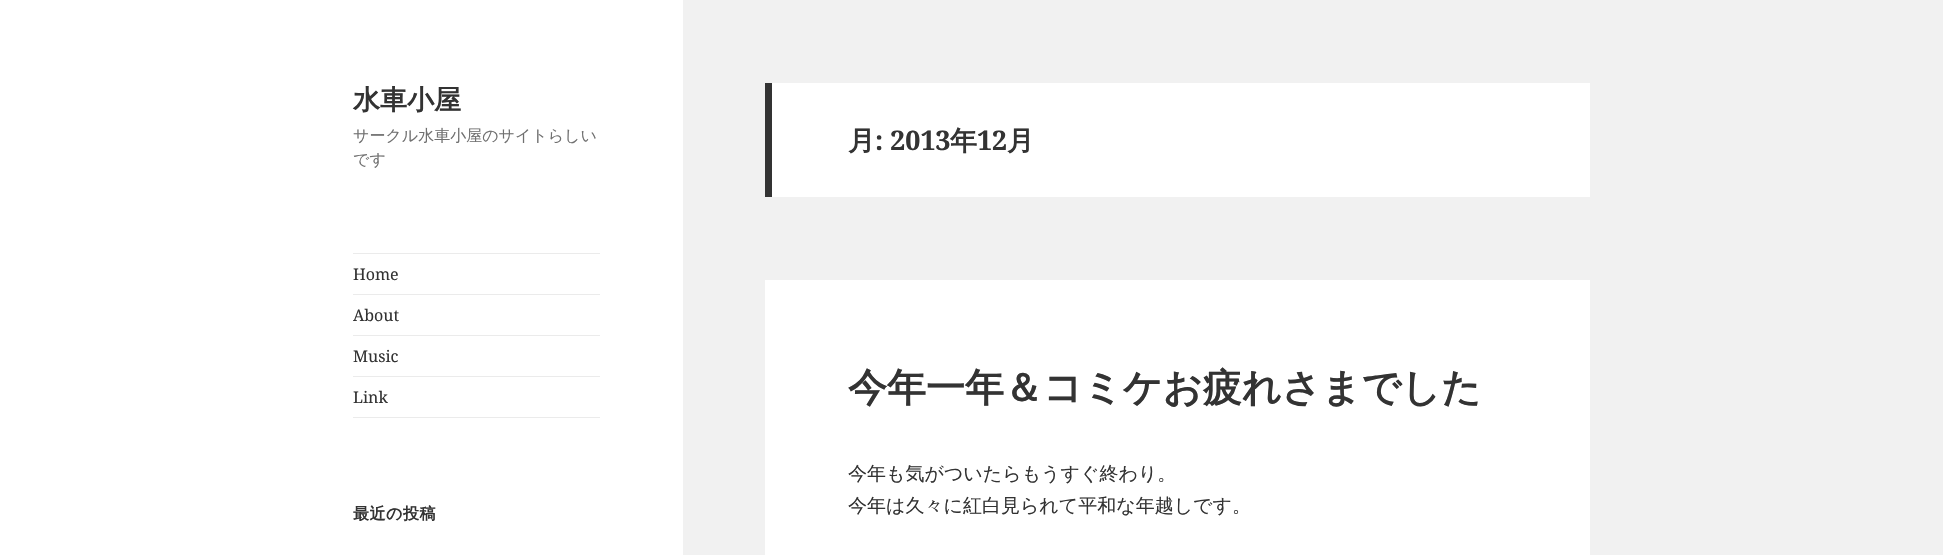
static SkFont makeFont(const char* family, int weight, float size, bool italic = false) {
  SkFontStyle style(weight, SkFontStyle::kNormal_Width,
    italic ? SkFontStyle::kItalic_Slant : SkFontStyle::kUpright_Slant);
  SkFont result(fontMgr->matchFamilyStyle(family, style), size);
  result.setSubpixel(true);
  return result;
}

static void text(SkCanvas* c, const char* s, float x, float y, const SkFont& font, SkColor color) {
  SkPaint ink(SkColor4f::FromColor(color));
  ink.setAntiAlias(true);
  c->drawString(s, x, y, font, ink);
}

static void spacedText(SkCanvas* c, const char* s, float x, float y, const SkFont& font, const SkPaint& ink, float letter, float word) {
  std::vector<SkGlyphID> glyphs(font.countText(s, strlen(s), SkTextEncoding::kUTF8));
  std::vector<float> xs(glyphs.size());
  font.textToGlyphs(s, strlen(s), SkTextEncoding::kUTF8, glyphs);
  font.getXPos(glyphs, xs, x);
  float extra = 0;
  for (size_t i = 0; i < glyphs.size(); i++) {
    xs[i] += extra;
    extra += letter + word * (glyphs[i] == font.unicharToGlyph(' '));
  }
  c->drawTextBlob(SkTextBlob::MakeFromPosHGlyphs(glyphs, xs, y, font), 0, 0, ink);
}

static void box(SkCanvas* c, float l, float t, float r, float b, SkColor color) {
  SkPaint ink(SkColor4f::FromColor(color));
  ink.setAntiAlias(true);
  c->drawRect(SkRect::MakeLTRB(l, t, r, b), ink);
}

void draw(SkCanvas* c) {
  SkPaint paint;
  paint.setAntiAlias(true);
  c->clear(0xfff1f1f1);
  box(c, 0, 0, 683, 555, 0xffffffff);
  SkFont face1 = makeFont("WenQuanYi Zen Hei", 700, 27);
  text(c, "水車小屋", 353, 109, face1, 0xff333333);
  SkFont face2 = makeFont("WenQuanYi Zen Hei", 500, 16);
  text(c, "サークル水車小屋のサイトらしい", 353, 141, face2, 0xff707070);
  text(c, "です", 353, 165, face2, 0xff707070);
  box(c, 353, 253, 600, 254, 0xffebebeb);
  box(c, 353, 417, 600, 418, 0xffebebeb);
  SkFont face3 = makeFont("Noto Serif", 400, 16);
  text(c, "Home", 353, 280, face3, 0xff333333);
  box(c, 353, 294, 600, 295, 0xffebebeb);
  text(c, "About", 353, 321, face3, 0xff333333);
  box(c, 353, 335, 600, 336, 0xffebebeb);
  text(c, "Music", 353, 362, face3, 0xff333333);
  box(c, 353, 376, 600, 377, 0xffebebeb);
  text(c, "Link", 353, 403, face3, 0xff333333);
  SkFont face4 = makeFont("WenQuanYi Zen Hei", 700, 16);
  paint.setColor(0xff333333);
  spacedText(c, "最近の投稿", 353, 519, face4, paint, 0.5f, 0);
  box(c, 772, 83, 1590, 197, 0xffffffff);
  box(c, 765, 83, 772, 197, 0xff333333);
  text(c, "月", 848, 150, face1, 0xff333333);
  SkFont face5 = makeFont("Noto Serif", 700, 27);
  text(c, ": 2013", 875, 150, face5, 0xff333333);
  text(c, "年", 950, 150, face1, 0xff333333);
  text(c, "12", 977, 150, face5, 0xff333333);
  text(c, "月", 1007, 150, face1, 0xff333333);
  box(c, 765, 280, 1590, 555, 0xffffffff);
  SkFont face6 = makeFont("WenQuanYi Zen Hei", 700, 39);
  text(c, "今年一年＆コミケお疲れさまでした", 848, 401, face6, 0xff333333);
  SkFont face7 = makeFont("WenQuanYi Zen Hei", 500, 19);
  text(c, "今年も気がついたらもうすぐ終わり。", 848, 480, face7, 0xff333333);
  text(c, "今年は久々に紅白見られて平和な年越しです。", 848, 512, face7, 0xff333333);
}
